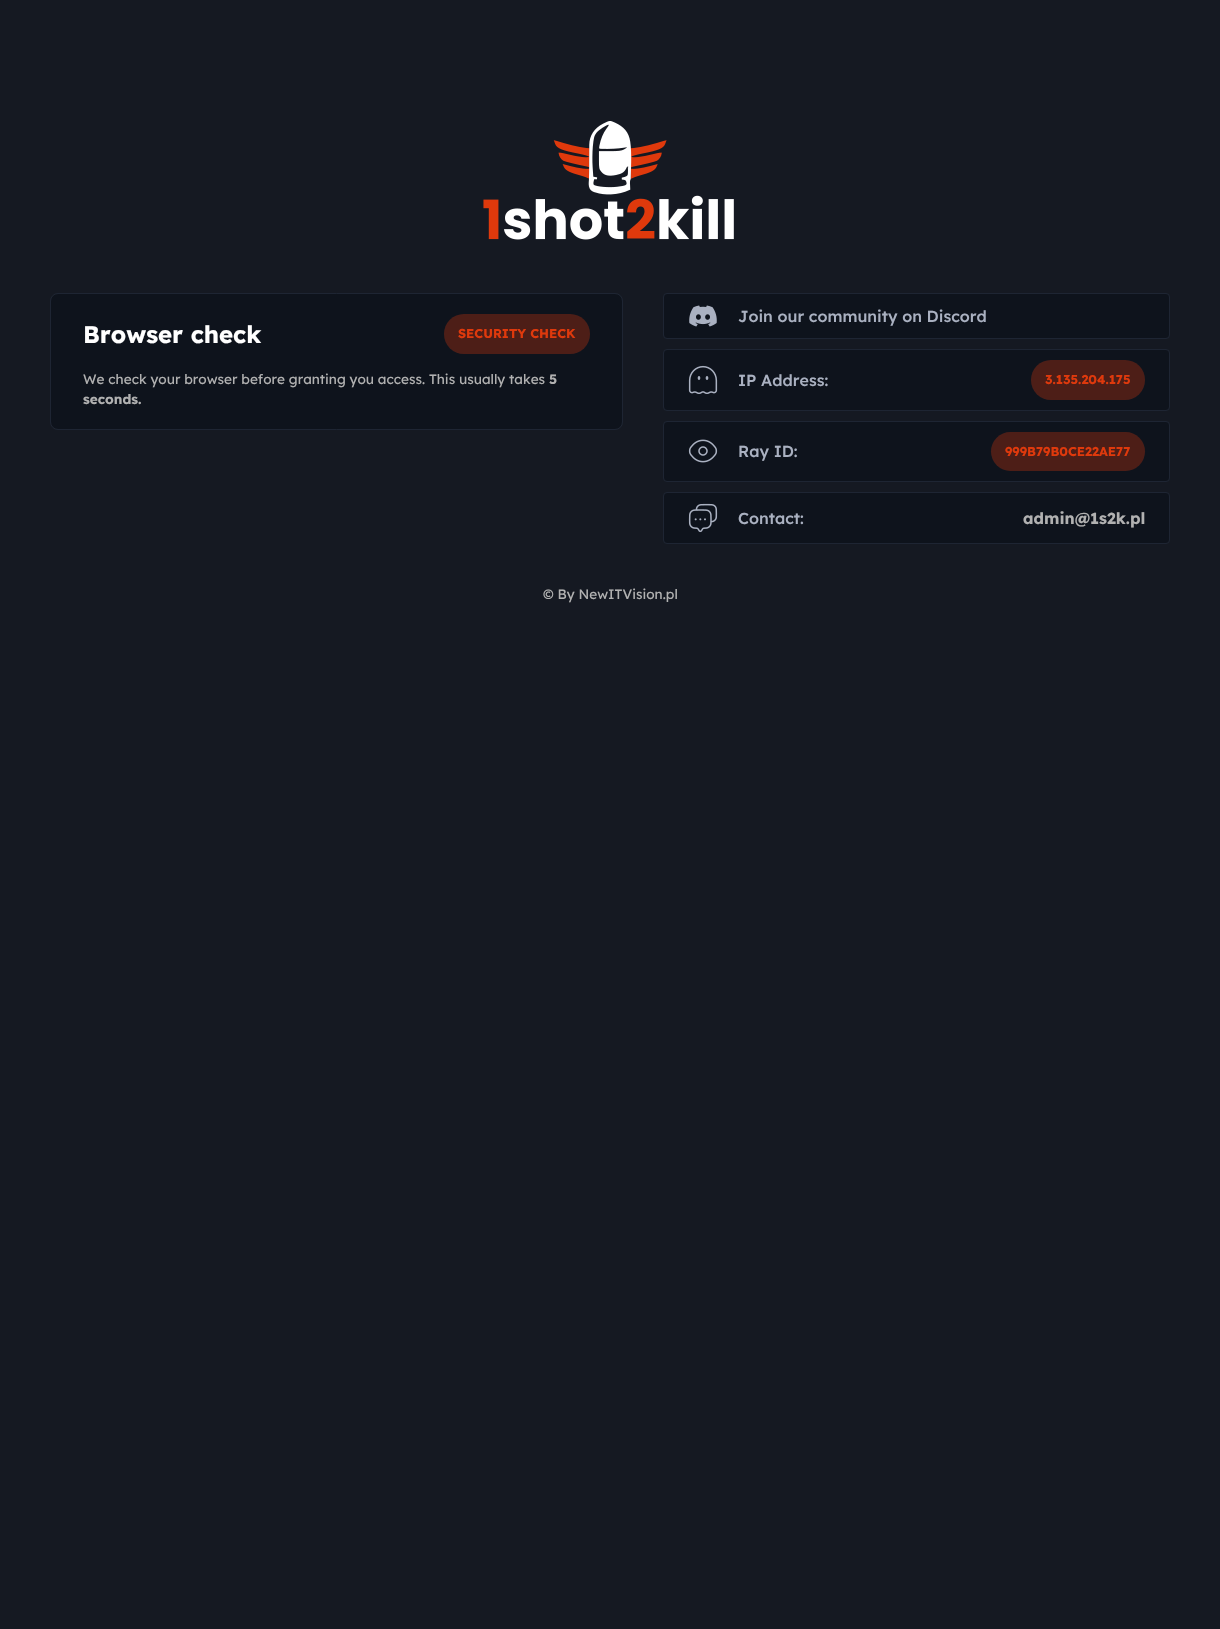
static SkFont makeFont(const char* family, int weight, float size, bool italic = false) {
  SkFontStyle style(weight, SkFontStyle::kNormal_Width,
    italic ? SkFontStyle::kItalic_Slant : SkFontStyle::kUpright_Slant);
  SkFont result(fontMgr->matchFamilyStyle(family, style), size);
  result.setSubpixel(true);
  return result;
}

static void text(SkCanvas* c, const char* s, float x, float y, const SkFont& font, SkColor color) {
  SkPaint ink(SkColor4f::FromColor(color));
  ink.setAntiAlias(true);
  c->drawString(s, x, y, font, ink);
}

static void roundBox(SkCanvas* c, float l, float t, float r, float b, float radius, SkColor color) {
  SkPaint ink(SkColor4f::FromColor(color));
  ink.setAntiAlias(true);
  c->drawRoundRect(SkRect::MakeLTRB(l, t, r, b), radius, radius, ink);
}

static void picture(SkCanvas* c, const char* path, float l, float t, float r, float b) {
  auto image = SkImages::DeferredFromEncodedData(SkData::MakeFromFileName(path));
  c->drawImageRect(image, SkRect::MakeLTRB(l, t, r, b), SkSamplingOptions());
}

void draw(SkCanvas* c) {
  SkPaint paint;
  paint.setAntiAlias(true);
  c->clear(0xff151922);
  picture(c, "img_01.png", 483, 121, 734, 240);
  paint.setColor(0xff0e131c);
  c->drawRoundRect(SkRect::MakeLTRB(50.5f, 293.5f, 622.5f, 429.5f), 7.5f, 7.5f, paint);
  paint.setStyle(SkPaint::kStroke_Style);
  paint.setStrokeWidth(1);
  paint.setColor(0xff1e2533);
  c->drawRoundRect(SkRect::MakeLTRB(50.5f, 293.5f, 622.5f, 429.5f), 7.5f, 7.5f, paint);
  SkFont face1 = makeFont("Lexend", 700, 24);
  text(c, "Browser check", 83, 343, face1, 0xffffffff);
  roundBox(c, 444, 314, 590, 354, 20, 0xff4d1e17);
  SkFont face2 = makeFont("Lexend", 700, 12.75f);
  text(c, "SECURITY CHECK", 458, 338, face2, 0xffdf390c);
  SkFont face3 = makeFont("Lexend", 400, 13.6f);
  text(c, "We check your browser before granting you access. This usually takes", 83, 384, face3, 0xffb1b1b1);
  SkFont face4 = makeFont("Lexend", 700, 13.6f);
  text(c, "5", 549, 384, face4, 0xffb1b1b1);
  text(c, "seconds.", 83, 404, face4, 0xffb1b1b1);
  paint.setStyle(SkPaint::kFill_Style);
  paint.setColor(0xff0e131c);
  c->drawRoundRect(SkRect::MakeLTRB(663.5f, 293.5f, 1169.5f, 338.5f), 3.5f, 3.5f, paint);
  paint.setStyle(SkPaint::kStroke_Style);
  paint.setColor(0xff1e2533);
  c->drawRoundRect(SkRect::MakeLTRB(663.5f, 293.5f, 1169.5f, 338.5f), 3.5f, 3.5f, paint);
  picture(c, "img_02.png", 689, 305, 717, 327);
  SkFont face5 = makeFont("Lexend", 500, 16);
  text(c, "Join our community on Discord", 738, 322, face5, 0xffaab1c1);
  paint.setStyle(SkPaint::kFill_Style);
  paint.setColor(0xff0e131c);
  c->drawRoundRect(SkRect::MakeLTRB(663.5f, 349.5f, 1169.5f, 410.5f), 3.5f, 3.5f, paint);
  paint.setStyle(SkPaint::kStroke_Style);
  paint.setColor(0xff1e2533);
  c->drawRoundRect(SkRect::MakeLTRB(663.5f, 349.5f, 1169.5f, 410.5f), 3.5f, 3.5f, paint);
  picture(c, "img_03.png", 688, 365, 718, 394);
  text(c, "IP Address:", 738, 386, face5, 0xffaab1c1);
  roundBox(c, 1031, 360, 1145, 400, 20, 0xff4d1e17);
  text(c, "3.135.204.175", 1045, 384, face2, 0xffdf390c);
  paint.setStyle(SkPaint::kFill_Style);
  paint.setColor(0xff0e131c);
  c->drawRoundRect(SkRect::MakeLTRB(663.5f, 421.5f, 1169.5f, 481.5f), 3.5f, 3.5f, paint);
  paint.setStyle(SkPaint::kStroke_Style);
  paint.setColor(0xff1e2533);
  c->drawRoundRect(SkRect::MakeLTRB(663.5f, 421.5f, 1169.5f, 481.5f), 3.5f, 3.5f, paint);
  picture(c, "img_04.png", 688, 439, 718, 463);
  text(c, "Ray ID:", 738, 457, face5, 0xffaab1c1);
  roundBox(c, 991, 432, 1145, 471, 19.5f, 0xff4d1e17);
  text(c, "999B79B0CE22AE77", 1005, 456, face2, 0xffdf390c);
  paint.setStyle(SkPaint::kFill_Style);
  paint.setColor(0xff0e131c);
  c->drawRoundRect(SkRect::MakeLTRB(663.5f, 492.5f, 1169.5f, 543.5f), 3.5f, 3.5f, paint);
  paint.setStyle(SkPaint::kStroke_Style);
  paint.setColor(0xff1e2533);
  c->drawRoundRect(SkRect::MakeLTRB(663.5f, 492.5f, 1169.5f, 543.5f), 3.5f, 3.5f, paint);
  picture(c, "img_05.png", 688, 503, 718, 533);
  text(c, "Contact:", 738, 524, face5, 0xffaab1c1);
  SkFont face6 = makeFont("Lexend", 700, 16);
  text(c, "admin@1s2k.pl", 1023, 524, face6, 0xffb1b1b1);
  text(c, "© By NewITVision.pl", 543, 599, face3, 0xffb1b1b1);
}
